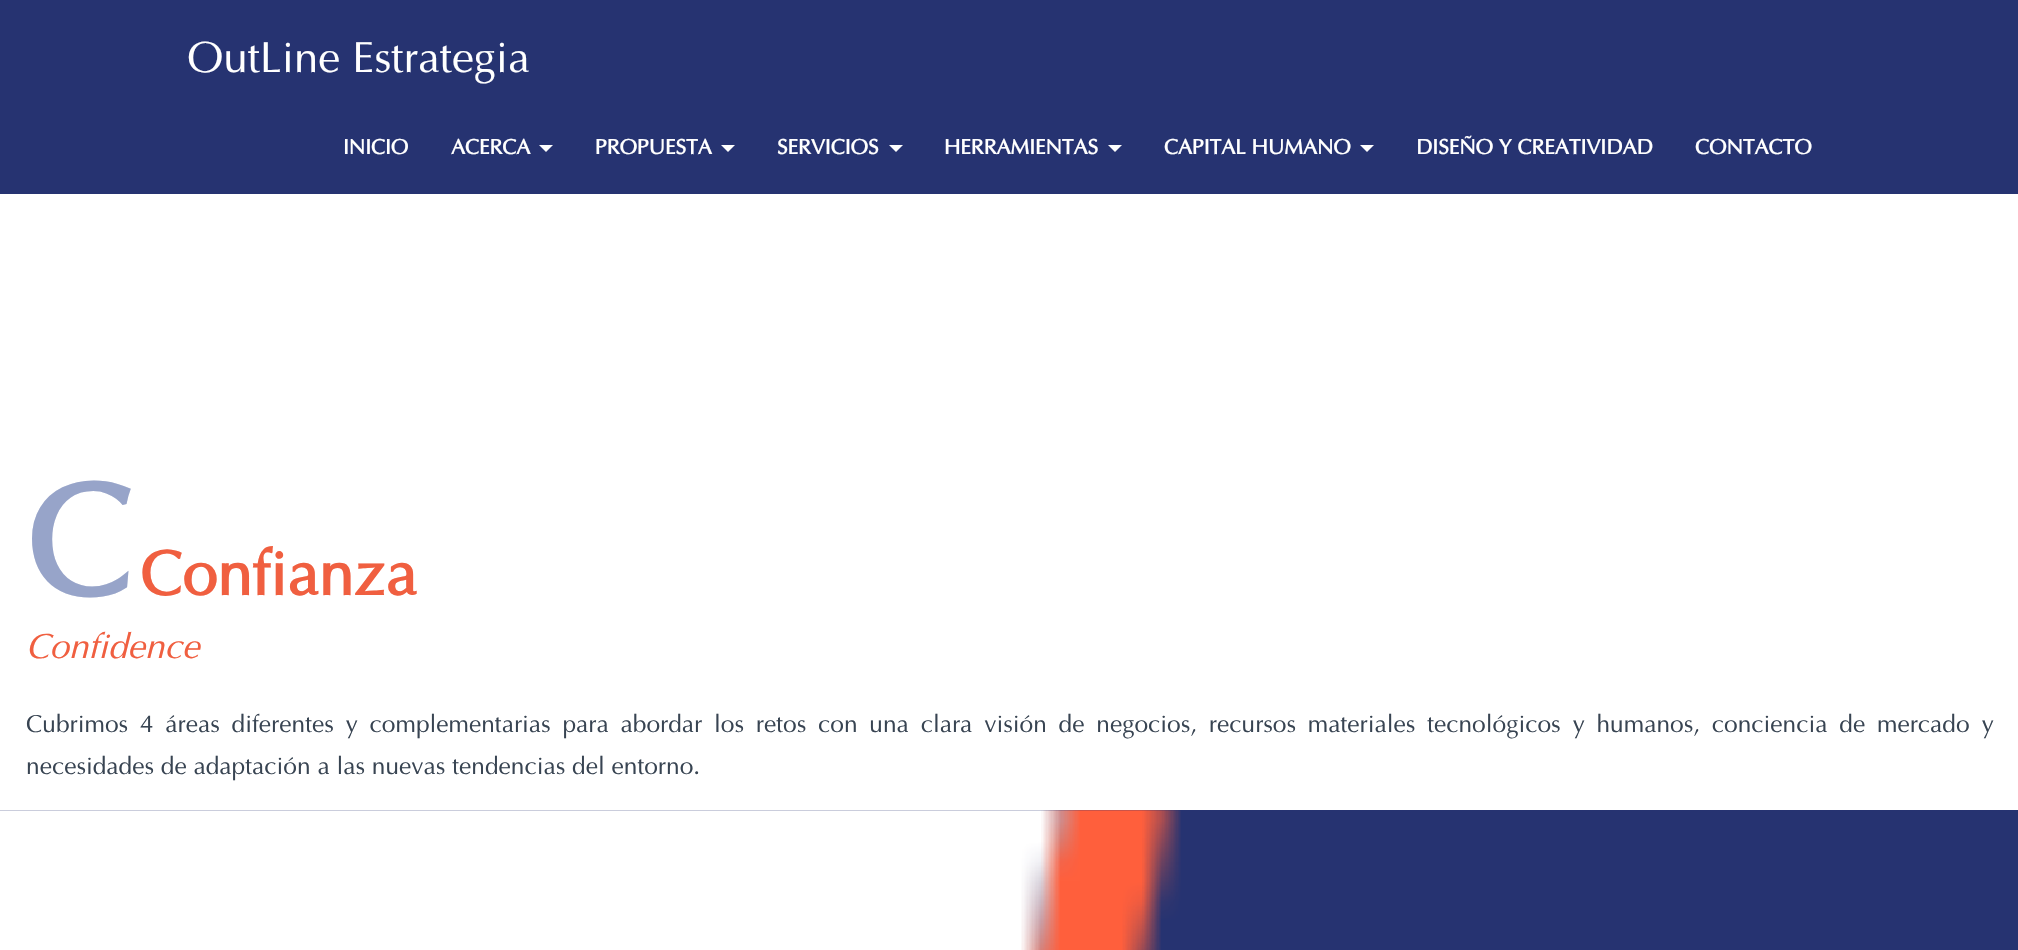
static SkFont makeFont(const char* family, int weight, float size, bool italic = false) {
  SkFontStyle style(weight, SkFontStyle::kNormal_Width,
    italic ? SkFontStyle::kItalic_Slant : SkFontStyle::kUpright_Slant);
  SkFont result(fontMgr->matchFamilyStyle(family, style), size);
  result.setSubpixel(true);
  return result;
}

static void text(SkCanvas* c, const char* s, float x, float y, const SkFont& font, SkColor color) {
  SkPaint ink(SkColor4f::FromColor(color));
  ink.setAntiAlias(true);
  c->drawString(s, x, y, font, ink);
}

static void spacedText(SkCanvas* c, const char* s, float x, float y, const SkFont& font, const SkPaint& ink, float letter, float word) {
  std::vector<SkGlyphID> glyphs(font.countText(s, strlen(s), SkTextEncoding::kUTF8));
  std::vector<float> xs(glyphs.size());
  font.textToGlyphs(s, strlen(s), SkTextEncoding::kUTF8, glyphs);
  font.getXPos(glyphs, xs, x);
  float extra = 0;
  for (size_t i = 0; i < glyphs.size(); i++) {
    xs[i] += extra;
    extra += letter + word * (glyphs[i] == font.unicharToGlyph(' '));
  }
  c->drawTextBlob(SkTextBlob::MakeFromPosHGlyphs(glyphs, xs, y, font), 0, 0, ink);
}

static void box(SkCanvas* c, float l, float t, float r, float b, SkColor color) {
  SkPaint ink(SkColor4f::FromColor(color));
  ink.setAntiAlias(true);
  c->drawRect(SkRect::MakeLTRB(l, t, r, b), ink);
}

static void picture(SkCanvas* c, const char* path, float l, float t, float r, float b) {
  auto image = SkImages::DeferredFromEncodedData(SkData::MakeFromFileName(path));
  c->drawImageRect(image, SkRect::MakeLTRB(l, t, r, b), SkSamplingOptions());
}

void draw(SkCanvas* c) {
  SkPaint paint;
  paint.setAntiAlias(true);
  c->clear(0xffffffff);
  box(c, 0, 0, 2018, 194, 0xff263371);
  SkFont face1 = makeFont("Optima", 400, 43.75f);
  text(c, "OutLine Estrategia", 187, 72, face1, 0xffffffff);
  SkFont face2 = makeFont("Optima", 700, 21);
  text(c, "INICIO", 343, 154, face2, 0xffffffff);
  text(c, "ACERCA", 451, 154, face2, 0xffffffff);
  paint.setColor(0xffffffff);
  c->drawPath(SkPathBuilder().moveTo(539, 145).lineTo(553, 145).lineTo(546, 152).close().detach(), paint);
  text(c, "PROPUESTA", 595, 154, face2, 0xffffffff);
  c->drawPath(SkPathBuilder().moveTo(721, 145).lineTo(735, 145).lineTo(728, 152).close().detach(), paint);
  text(c, "SERVICIOS", 777, 154, face2, 0xffffffff);
  c->drawPath(SkPathBuilder().moveTo(889, 145).lineTo(903, 145).lineTo(896, 152).close().detach(), paint);
  text(c, "HERRAMIENTAS", 944, 154, face2, 0xffffffff);
  c->drawPath(SkPathBuilder().moveTo(1108, 145).lineTo(1122, 145).lineTo(1115, 152).close().detach(), paint);
  text(c, "CAPITAL HUMANO", 1164, 154, face2, 0xffffffff);
  c->drawPath(SkPathBuilder().moveTo(1360, 145).lineTo(1374, 145).lineTo(1367, 152).close().detach(), paint);
  text(c, "DISEÑO Y CREATIVIDAD", 1416, 154, face2, 0xffffffff);
  text(c, "CONTACTO", 1695, 154, face2, 0xffffffff);
  SkFont face3 = makeFont("Optima", 700, 158);
  text(c, "C", 26, 595, face3, 0xff97a4c9);
  SkFont face4 = makeFont("Optima", 700, 63);
  text(c, "Confianza", 140, 595, face4, 0xfff05f40);
  SkFont face5 = makeFont("Optima", 400, 35, true);
  text(c, "Confidence", 26, 658, face5, 0xfff05f40);
  SkFont face6 = makeFont("Optima", 400, 24.5f);
  paint.setColor(0xff384452);
  spacedText(c, "Cubrimos 4 áreas diferentes y complementarias para abordar los retos con una clara visión de negocios, recursos materiales tecnológicos y humanos, conciencia de mercado y", 26, 732, face6, paint, 0, 5);
  text(c, "necesidades de adaptación a las nuevas tendencias del entorno.", 26, 774, face6, 0xff384452);
  box(c, 0, 810, 2018, 950, 0xff263371);
  picture(c, "img_01.png", 0, 810, 1181, 950);
}
